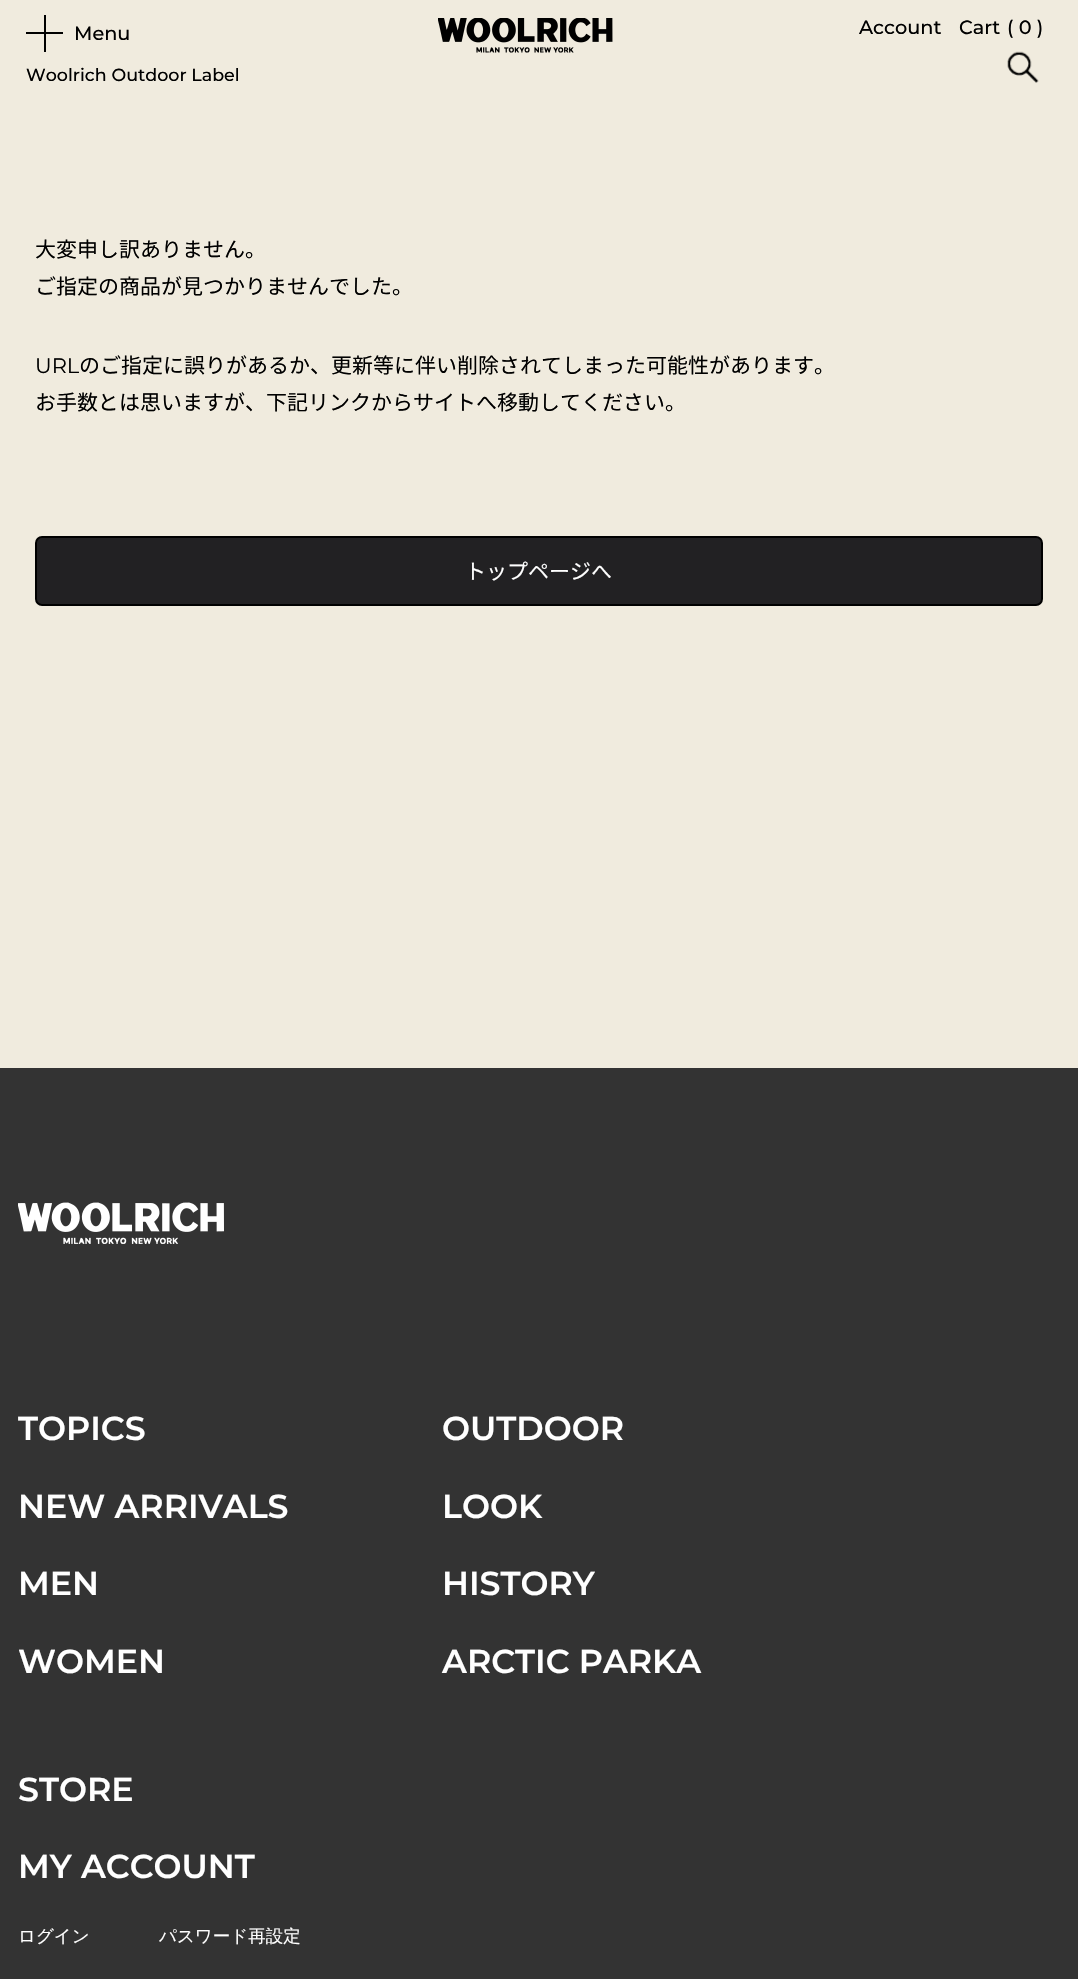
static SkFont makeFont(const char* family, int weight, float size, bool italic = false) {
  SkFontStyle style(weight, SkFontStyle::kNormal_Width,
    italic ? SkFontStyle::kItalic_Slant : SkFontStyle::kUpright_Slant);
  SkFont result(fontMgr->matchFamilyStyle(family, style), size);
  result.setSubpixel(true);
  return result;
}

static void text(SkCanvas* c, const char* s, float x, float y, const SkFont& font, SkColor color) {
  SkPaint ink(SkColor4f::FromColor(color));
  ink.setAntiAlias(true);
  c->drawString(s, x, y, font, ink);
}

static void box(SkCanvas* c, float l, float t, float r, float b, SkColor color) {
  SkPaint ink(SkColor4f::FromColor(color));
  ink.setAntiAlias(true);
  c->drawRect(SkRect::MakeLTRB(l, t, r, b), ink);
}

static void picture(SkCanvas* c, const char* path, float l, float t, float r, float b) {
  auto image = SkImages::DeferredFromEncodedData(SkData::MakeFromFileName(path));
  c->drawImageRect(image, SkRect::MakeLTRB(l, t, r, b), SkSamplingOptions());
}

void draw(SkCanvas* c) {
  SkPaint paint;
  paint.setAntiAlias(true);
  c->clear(0xfff0ebde);
  box(c, 26, 32, 63, 34, 0xff000000);
  box(c, 44, 15, 46, 52, 0xff000000);
  SkFont face1 = makeFont("Montserrat", 500, 19.25f);
  text(c, "Menu", 74, 40, face1, 0xff000000);
  SkFont face2 = makeFont("Montserrat", 500, 17.5f);
  text(c, "Woolrich Outdoor Label", 26, 81, face2, 0xff000000);
  picture(c, "img_01.png", 438, 18, 613, 53);
  text(c, "Account", 859, 34, face1, 0xff000000);
  text(c, "Cart", 959, 34, face1, 0xff000000);
  text(c, "( 0 )", 1007, 34, face1, 0xff000000);
  picture(c, "img_02.png", 1007, 51, 1039, 83);
  SkFont face3 = makeFont("Noto Sans JP", 400, 21);
  text(c, "大変申し訳ありません。", 35, 257, face3, 0xff000000);
  text(c, "ご指定の商品が見つかりませんでした。", 35, 294, face3, 0xff000000);
  SkFont face4 = makeFont("Montserrat", 400, 21);
  text(c, "URL", 35, 373, face4, 0xff000000);
  text(c, "のご指定に誤りがあるか、更新等に伴い削除されてしまった可能性があります。", 79, 373, face3, 0xff000000);
  text(c, "お手数とは思いますが、下記リンクからサイトへ移動してください。", 35, 410, face3, 0xff000000);
  paint.setColor(0xff222123);
  c->drawRoundRect(SkRect::MakeLTRB(36, 537, 1042, 605), 6, 6, paint);
  paint.setStyle(SkPaint::kStroke_Style);
  paint.setStrokeWidth(2);
  paint.setColor(0xff000000);
  c->drawRoundRect(SkRect::MakeLTRB(36, 537, 1042, 605), 6, 6, paint);
  text(c, "トップページへ", 465, 579, face3, 0xffffffff);
  box(c, 0, 1068, 1078, 1979, 0xff333333);
  picture(c, "img_03.png", 18, 1202, 224, 1244);
  SkFont face5 = makeFont("Montserrat", 600, 33.25f);
  text(c, "TOPICS", 18, 1440, face5, 0xffffffff);
  text(c, "NEW ARRIVALS", 18, 1518, face5, 0xffffffff);
  text(c, "MEN", 18, 1595, face5, 0xffffffff);
  text(c, "WOMEN", 18, 1673, face5, 0xffffffff);
  text(c, "OUTDOOR", 442, 1440, face5, 0xffffffff);
  text(c, "LOOK", 442, 1518, face5, 0xffffffff);
  text(c, "HISTORY", 442, 1595, face5, 0xffffffff);
  text(c, "ARCTIC PARKA", 442, 1673, face5, 0xffffffff);
  text(c, "STORE", 18, 1801, face5, 0xffffffff);
  text(c, "MY ACCOUNT", 18, 1878, face5, 0xffffffff);
  SkFont face6 = makeFont("WenQuanYi Zen Hei", 500, 17.5f);
  text(c, "ログイン", 18, 1942, face6, 0xffffffff);
  text(c, "パスワード再設定", 159, 1942, face6, 0xffffffff);
}
